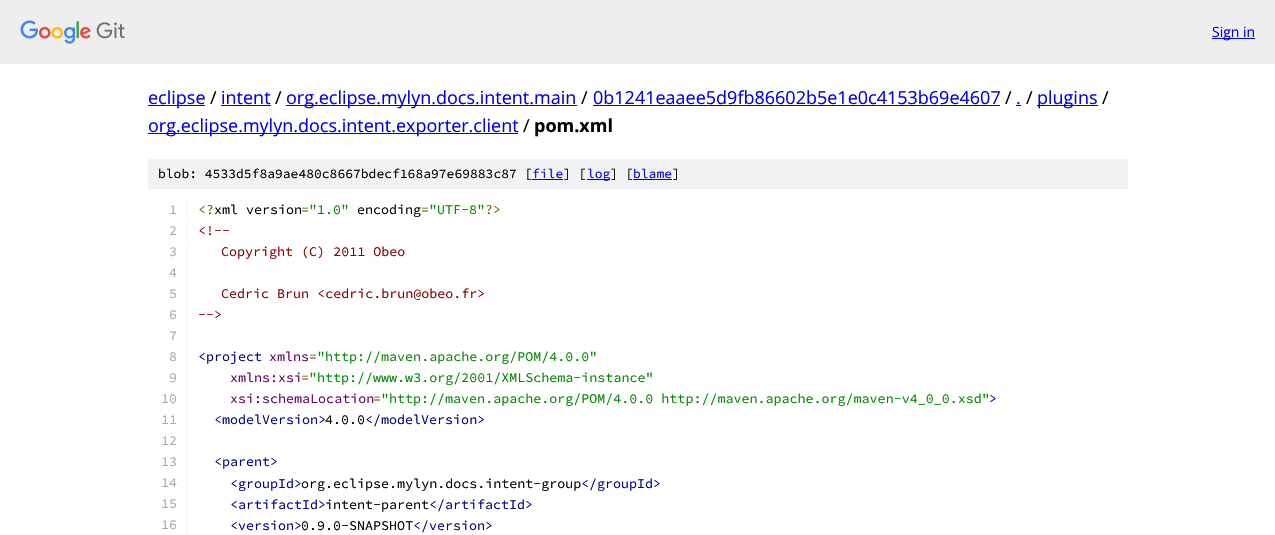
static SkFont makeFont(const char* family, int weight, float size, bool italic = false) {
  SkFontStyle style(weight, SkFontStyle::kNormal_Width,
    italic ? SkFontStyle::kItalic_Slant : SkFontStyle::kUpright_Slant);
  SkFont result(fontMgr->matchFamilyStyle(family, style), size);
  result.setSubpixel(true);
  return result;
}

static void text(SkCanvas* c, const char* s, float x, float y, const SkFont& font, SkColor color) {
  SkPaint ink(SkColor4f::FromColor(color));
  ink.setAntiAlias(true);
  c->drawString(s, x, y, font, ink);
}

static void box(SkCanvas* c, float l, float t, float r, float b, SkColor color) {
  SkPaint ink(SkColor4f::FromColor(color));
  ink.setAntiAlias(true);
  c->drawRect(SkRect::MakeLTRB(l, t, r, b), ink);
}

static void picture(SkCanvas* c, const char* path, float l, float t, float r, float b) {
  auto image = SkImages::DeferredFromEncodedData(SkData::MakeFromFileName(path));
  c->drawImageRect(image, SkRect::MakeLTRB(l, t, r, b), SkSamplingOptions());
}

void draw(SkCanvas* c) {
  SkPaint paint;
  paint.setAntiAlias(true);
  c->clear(0xffffffff);
  box(c, 0, 0, 1275, 64, 0xffeeeeee);
  picture(c, "img_01.png", 20, 20, 125, 44);
  box(c, 1212, 38, 1255, 39, 0xff0000ee);
  SkFont face1 = makeFont("Open Sans", 400, 14);
  text(c, "Sign in", 1212, 37, face1, 0xff0000ee);
  box(c, 148, 105, 205, 106, 0xff0000ee);
  SkFont face2 = makeFont("Open Sans", 400, 18);
  text(c, "eclipse", 148, 104, face2, 0xff0000ee);
  text(c, "/", 210, 104, face2, 0xff000000);
  text(c, "intent", 221, 104, face2, 0xff0000ee);
  box(c, 221, 105, 271, 106, 0xff0000ee);
  text(c, "/", 275, 104, face2, 0xff000000);
  box(c, 286, 105, 577, 106, 0xff0000ee);
  text(c, "org.eclipse.mylyn.docs.intent.main", 286, 104, face2, 0xff0000ee);
  text(c, "/", 581, 104, face2, 0xff000000);
  text(c, "0b1241eaaee5d9fb86602b5e1e0c4153b69e4607", 593, 104, face2, 0xff0000ee);
  box(c, 593, 105, 1000, 106, 0xff0000ee);
  text(c, "/", 1005, 104, face2, 0xff000000);
  text(c, ".", 1016, 104, face2, 0xff0000ee);
  box(c, 1016, 105, 1021, 106, 0xff0000ee);
  text(c, "/", 1026, 104, face2, 0xff000000);
  box(c, 1037, 105, 1098, 106, 0xff0000ee);
  text(c, "plugins", 1037, 104, face2, 0xff0000ee);
  text(c, "/", 1102, 104, face2, 0xff000000);
  box(c, 148, 133, 518, 134, 0xff0000ee);
  text(c, "org.eclipse.mylyn.docs.intent.exporter.client", 148, 132, face2, 0xff0000ee);
  text(c, "/", 523, 132, face2, 0xff000000);
  SkFont face3 = makeFont("Open Sans", 700, 18);
  text(c, "pom.xml", 534, 132, face3, 0xff000000);
  box(c, 148, 159, 1128, 189, 0xfff1f2f3);
  SkFont face4 = makeFont("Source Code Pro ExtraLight", 200, 13);
  text(c, "blob: 4533d5f8a9ae480c8667bdecf168a97e69883c87 [", 158, 178, face4, 0xff000000);
  text(c, "file", 532, 178, face4, 0xff0000ee);
  box(c, 532, 179, 563, 180, 0xff0000ee);
  text(c, "] [", 563, 178, face4, 0xff000000);
  box(c, 587, 179, 610, 180, 0xff0000ee);
  text(c, "log", 587, 178, face4, 0xff0000ee);
  text(c, "] [", 610, 178, face4, 0xff000000);
  text(c, "blame", 633, 178, face4, 0xff0000ee);
  box(c, 633, 179, 672, 180, 0xff0000ee);
  text(c, "]", 672, 178, face4, 0xff000000);
  box(c, 187, 200, 188, 220, 0xfff1f2f3);
  SkFont face5 = makeFont("Source Code Pro ExtraLight", 200, 13.35f);
  text(c, "1", 169, 214, face5, 0xffaaaaaa);
  text(c, "<?", 198, 214, face5, 0xff666600);
  text(c, "xml version", 214, 214, face5, 0xff000000);
  text(c, "=", 301, 214, face5, 0xff666600);
  text(c, "\"1.0\"", 309, 214, face5, 0xff008800);
  text(c, "encoding", 357, 214, face5, 0xff000000);
  text(c, "=", 421, 214, face5, 0xff666600);
  text(c, "\"UTF-8\"", 429, 214, face5, 0xff008800);
  text(c, "?>", 485, 214, face5, 0xff666600);
  box(c, 187, 221, 188, 241, 0xfff1f2f3);
  text(c, "2", 169, 235, face5, 0xffaaaaaa);
  text(c, "<!--", 198, 235, face5, 0xff880000);
  box(c, 187, 242, 188, 535, 0xfff1f2f3);
  text(c, "3", 169, 256, face5, 0xffaaaaaa);
  text(c, "Copyright (C) 2011 Obeo", 221, 256, face5, 0xff880000);
  text(c, "4", 169, 277, face5, 0xffaaaaaa);
  text(c, "5", 169, 298, face5, 0xffaaaaaa);
  text(c, "Cedric Brun <cedric.brun@obeo.fr>", 221, 298, face5, 0xff880000);
  text(c, "6", 169, 319, face5, 0xffaaaaaa);
  text(c, "-->", 198, 319, face5, 0xff880000);
  text(c, "7", 169, 340, face5, 0xffaaaaaa);
  text(c, "8", 169, 361, face5, 0xffaaaaaa);
  text(c, "<project", 198, 361, face5, 0xff000088);
  text(c, "xmlns", 269, 361, face5, 0xff660066);
  text(c, "=", 309, 361, face5, 0xff666600);
  text(c, "\"http://maven.apache.org/POM/4.0.0\"", 317, 361, face5, 0xff008800);
  text(c, "9", 169, 382, face5, 0xffaaaaaa);
  text(c, "xmlns:xsi", 230, 382, face5, 0xff660066);
  text(c, "=", 301, 382, face5, 0xff666600);
  text(c, "\"http://www.w3.org/2001/XMLSchema-instance\"", 309, 382, face5, 0xff008800);
  text(c, "10", 161, 403, face5, 0xffaaaaaa);
  text(c, "xsi:schemaLocation", 230, 403, face5, 0xff660066);
  text(c, "=", 373, 403, face5, 0xff666600);
  text(c, "\"http://maven.apache.org/POM/4.0.0 http://maven.apache.org/maven-v4_0_0.xsd\"", 381, 403, face5, 0xff008800);
  text(c, ">", 989, 403, face5, 0xff000088);
  text(c, "11", 161, 424, face5, 0xffaaaaaa);
  text(c, "<modelVersion>", 214, 424, face5, 0xff000088);
  text(c, "4.0.0", 325, 424, face5, 0xff000000);
  text(c, "</modelVersion>", 365, 424, face5, 0xff000088);
  text(c, "12", 161, 445, face5, 0xffaaaaaa);
  text(c, "13", 161, 466, face5, 0xffaaaaaa);
  text(c, "<parent>", 214, 466, face5, 0xff000088);
  text(c, "14", 161, 487, face5, 0xffaaaaaa);
  text(c, "<groupId>", 230, 488, face5, 0xff000088);
  text(c, "org.eclipse.mylyn.docs.intent-group", 301, 488, face5, 0xff000000);
  text(c, "</groupId>", 581, 488, face5, 0xff000088);
  text(c, "15", 161, 508, face5, 0xffaaaaaa);
  text(c, "<artifactId>", 230, 509, face5, 0xff000088);
  text(c, "intent-parent", 325, 509, face5, 0xff000000);
  text(c, "</artifactId>", 429, 509, face5, 0xff000088);
  text(c, "16", 161, 529, face5, 0xffaaaaaa);
  text(c, "<version>", 230, 530, face5, 0xff000088);
  text(c, "0.9.0-SNAPSHOT", 301, 530, face5, 0xff000000);
  text(c, "</version>", 413, 530, face5, 0xff000088);
}
